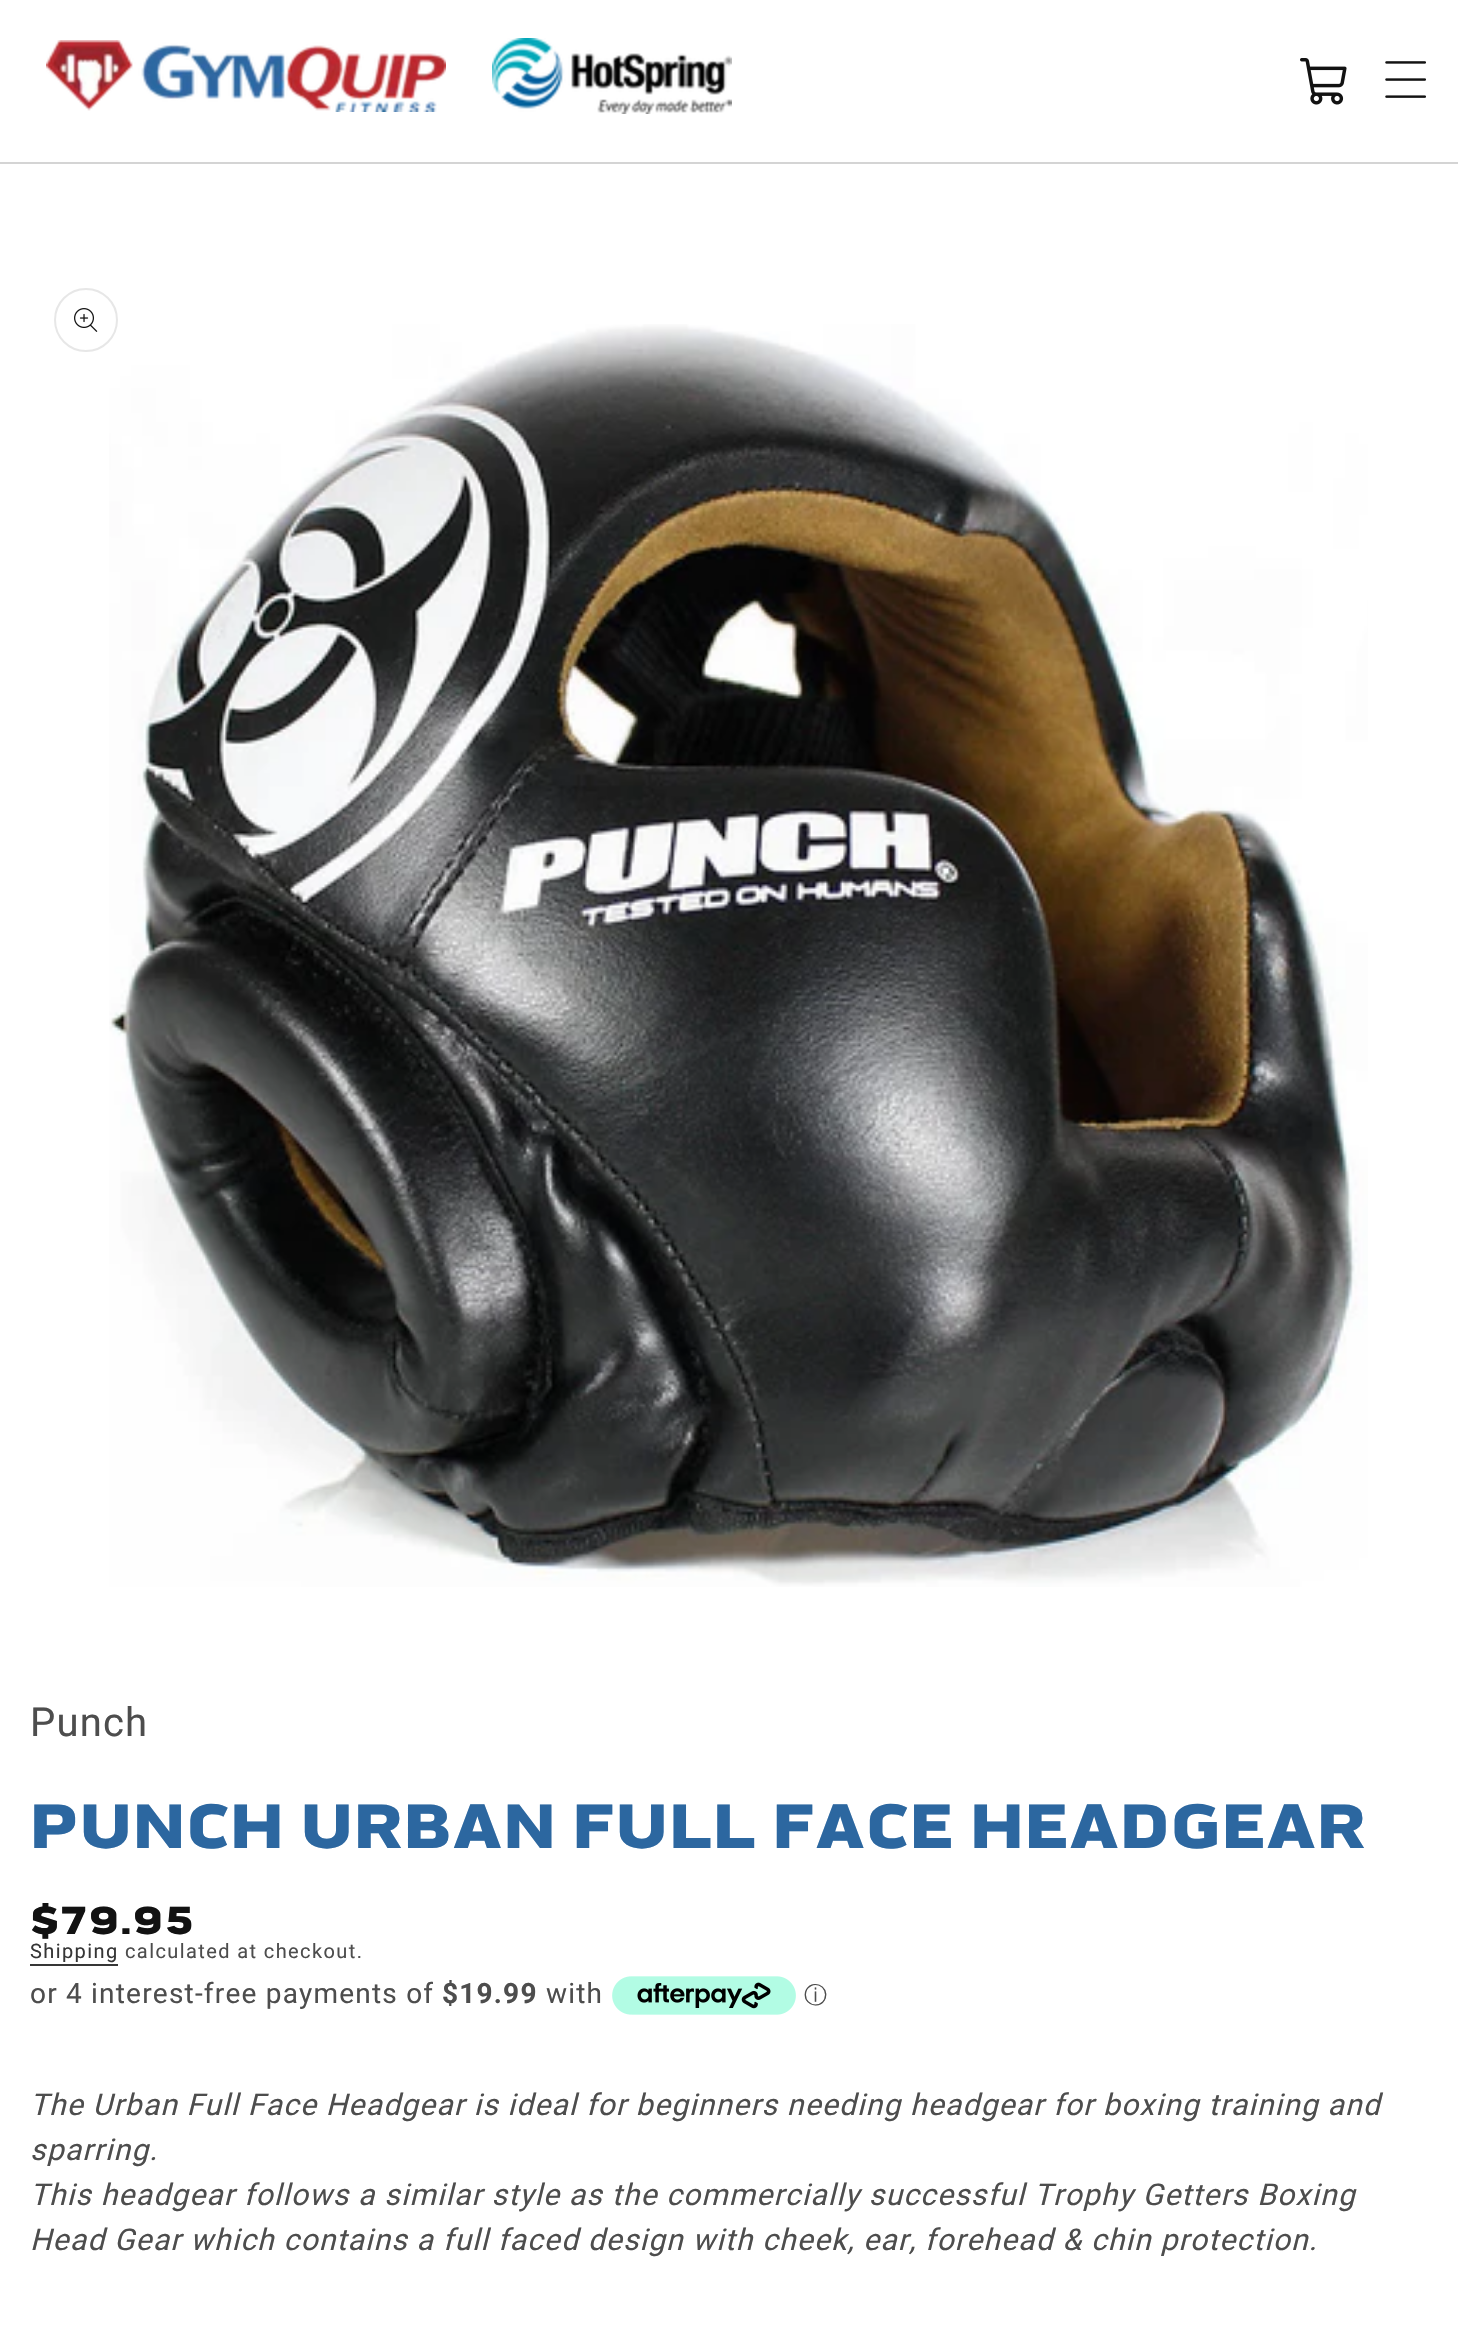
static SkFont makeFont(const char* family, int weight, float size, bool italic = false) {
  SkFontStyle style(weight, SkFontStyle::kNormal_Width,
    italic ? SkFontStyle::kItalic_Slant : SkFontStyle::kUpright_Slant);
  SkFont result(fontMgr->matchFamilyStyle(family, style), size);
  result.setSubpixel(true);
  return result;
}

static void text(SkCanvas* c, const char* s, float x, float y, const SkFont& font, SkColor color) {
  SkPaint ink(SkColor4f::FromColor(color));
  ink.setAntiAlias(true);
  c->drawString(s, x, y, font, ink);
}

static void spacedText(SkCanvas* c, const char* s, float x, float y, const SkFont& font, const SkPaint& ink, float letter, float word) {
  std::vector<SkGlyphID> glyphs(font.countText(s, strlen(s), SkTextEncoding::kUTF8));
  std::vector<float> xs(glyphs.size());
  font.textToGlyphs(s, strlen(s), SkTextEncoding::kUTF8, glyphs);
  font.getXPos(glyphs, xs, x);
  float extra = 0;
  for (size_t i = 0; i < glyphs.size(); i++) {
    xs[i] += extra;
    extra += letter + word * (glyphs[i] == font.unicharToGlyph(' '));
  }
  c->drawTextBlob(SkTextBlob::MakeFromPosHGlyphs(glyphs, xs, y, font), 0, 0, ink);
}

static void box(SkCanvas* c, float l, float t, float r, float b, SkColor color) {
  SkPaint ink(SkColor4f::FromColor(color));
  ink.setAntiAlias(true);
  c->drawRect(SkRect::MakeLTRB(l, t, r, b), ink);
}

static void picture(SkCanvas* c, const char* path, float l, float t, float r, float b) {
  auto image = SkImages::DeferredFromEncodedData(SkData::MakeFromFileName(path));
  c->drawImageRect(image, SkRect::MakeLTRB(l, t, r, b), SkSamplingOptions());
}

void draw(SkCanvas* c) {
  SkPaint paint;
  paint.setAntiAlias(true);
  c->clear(0xffffffff);
  box(c, 0, 162, 1458, 164, 0xffd4d4d4);
  picture(c, "img_01.png", 46, 40, 446, 112);
  picture(c, "img_02.png", 492, 38, 732, 114);
  picture(c, "img_03.png", 1300, 58, 1347, 105);
  picture(c, "img_04.png", 1385, 61, 1426, 98);
  picture(c, "img_06.png", 109, 324, 1368, 1587);
  paint.setStyle(SkPaint::kStroke_Style);
  paint.setStrokeWidth(2);
  paint.setColor(0xffe7e7e7);
  c->drawCircle(86, 320, 31, paint);
  picture(c, "img_05.png", 74, 308, 98, 332);
  SkFont face1 = makeFont("Roboto", 400, 40);
  paint.setStyle(SkPaint::kFill_Style);
  paint.setColor(0xff4d4d4d);
  spacedText(c, "Punch", 30, 1736, face1, paint, 1.2f, 0);
  SkFont face2 = makeFont("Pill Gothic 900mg", 900, 64);
  paint.setColor(0xff2c67a0);
  spacedText(c, "PUNCH URBAN FULL FACE HEADGEAR", 30, 1848, face2, paint, 1.2f, 0);
  SkFont face3 = makeFont("Pill Gothic 900mg", 900, 40);
  paint.setColor(0xff121212);
  spacedText(c, "$79.95", 30, 1934, face3, paint, 2.5f, 0);
  SkFont face4 = makeFont("Roboto", 400, 20);
  paint.setColor(0xff363636);
  spacedText(c, "Shipping", 30, 1958, face4, paint, 1.4f, 0);
  box(c, 30, 1964, 118, 1966, 0xff363636);
  paint.setColor(0xff4d4d4d);
  spacedText(c, "calculated at checkout.", 125, 1958, face4, paint, 1.4f, 0);
  SkFont face5 = makeFont("Roboto", 400, 28);
  spacedText(c, "or 4 interest-free payments of", 30, 2003, face5, paint, 1.2f, 0);
  SkFont face6 = makeFont("Roboto", 700, 28);
  spacedText(c, "$19.99", 442, 2003, face6, paint, 1.2f, 0);
  spacedText(c, "with", 546, 2003, face5, paint, 1.2f, 0);
  picture(c, "img_07.png", 612, 1976, 796, 2015);
  SkFont face7 = makeFont("WenQuanYi Zen Hei", 500, 23);
  text(c, "ⓘ", 804, 2003, face7, 0xff4d4d4d);
  SkFont face8 = makeFont("Roboto", 400, 30, true);
  spacedText(c, "The Urban Full Face Headgear is ideal for beginners needing headgear for boxing training and", 30, 2115, face8, paint, 1.2f, 0);
  spacedText(c, "sparring.", 30, 2160, face8, paint, 1.2f, 0);
  spacedText(c, "This headgear follows a similar style as the commercially successful Trophy Getters Boxing", 30, 2205, face8, paint, 1.2f, 0);
  spacedText(c, "Head Gear which contains a full faced design with cheek, ear, forehead & chin protection.", 30, 2250, face8, paint, 1.2f, 0);
}
